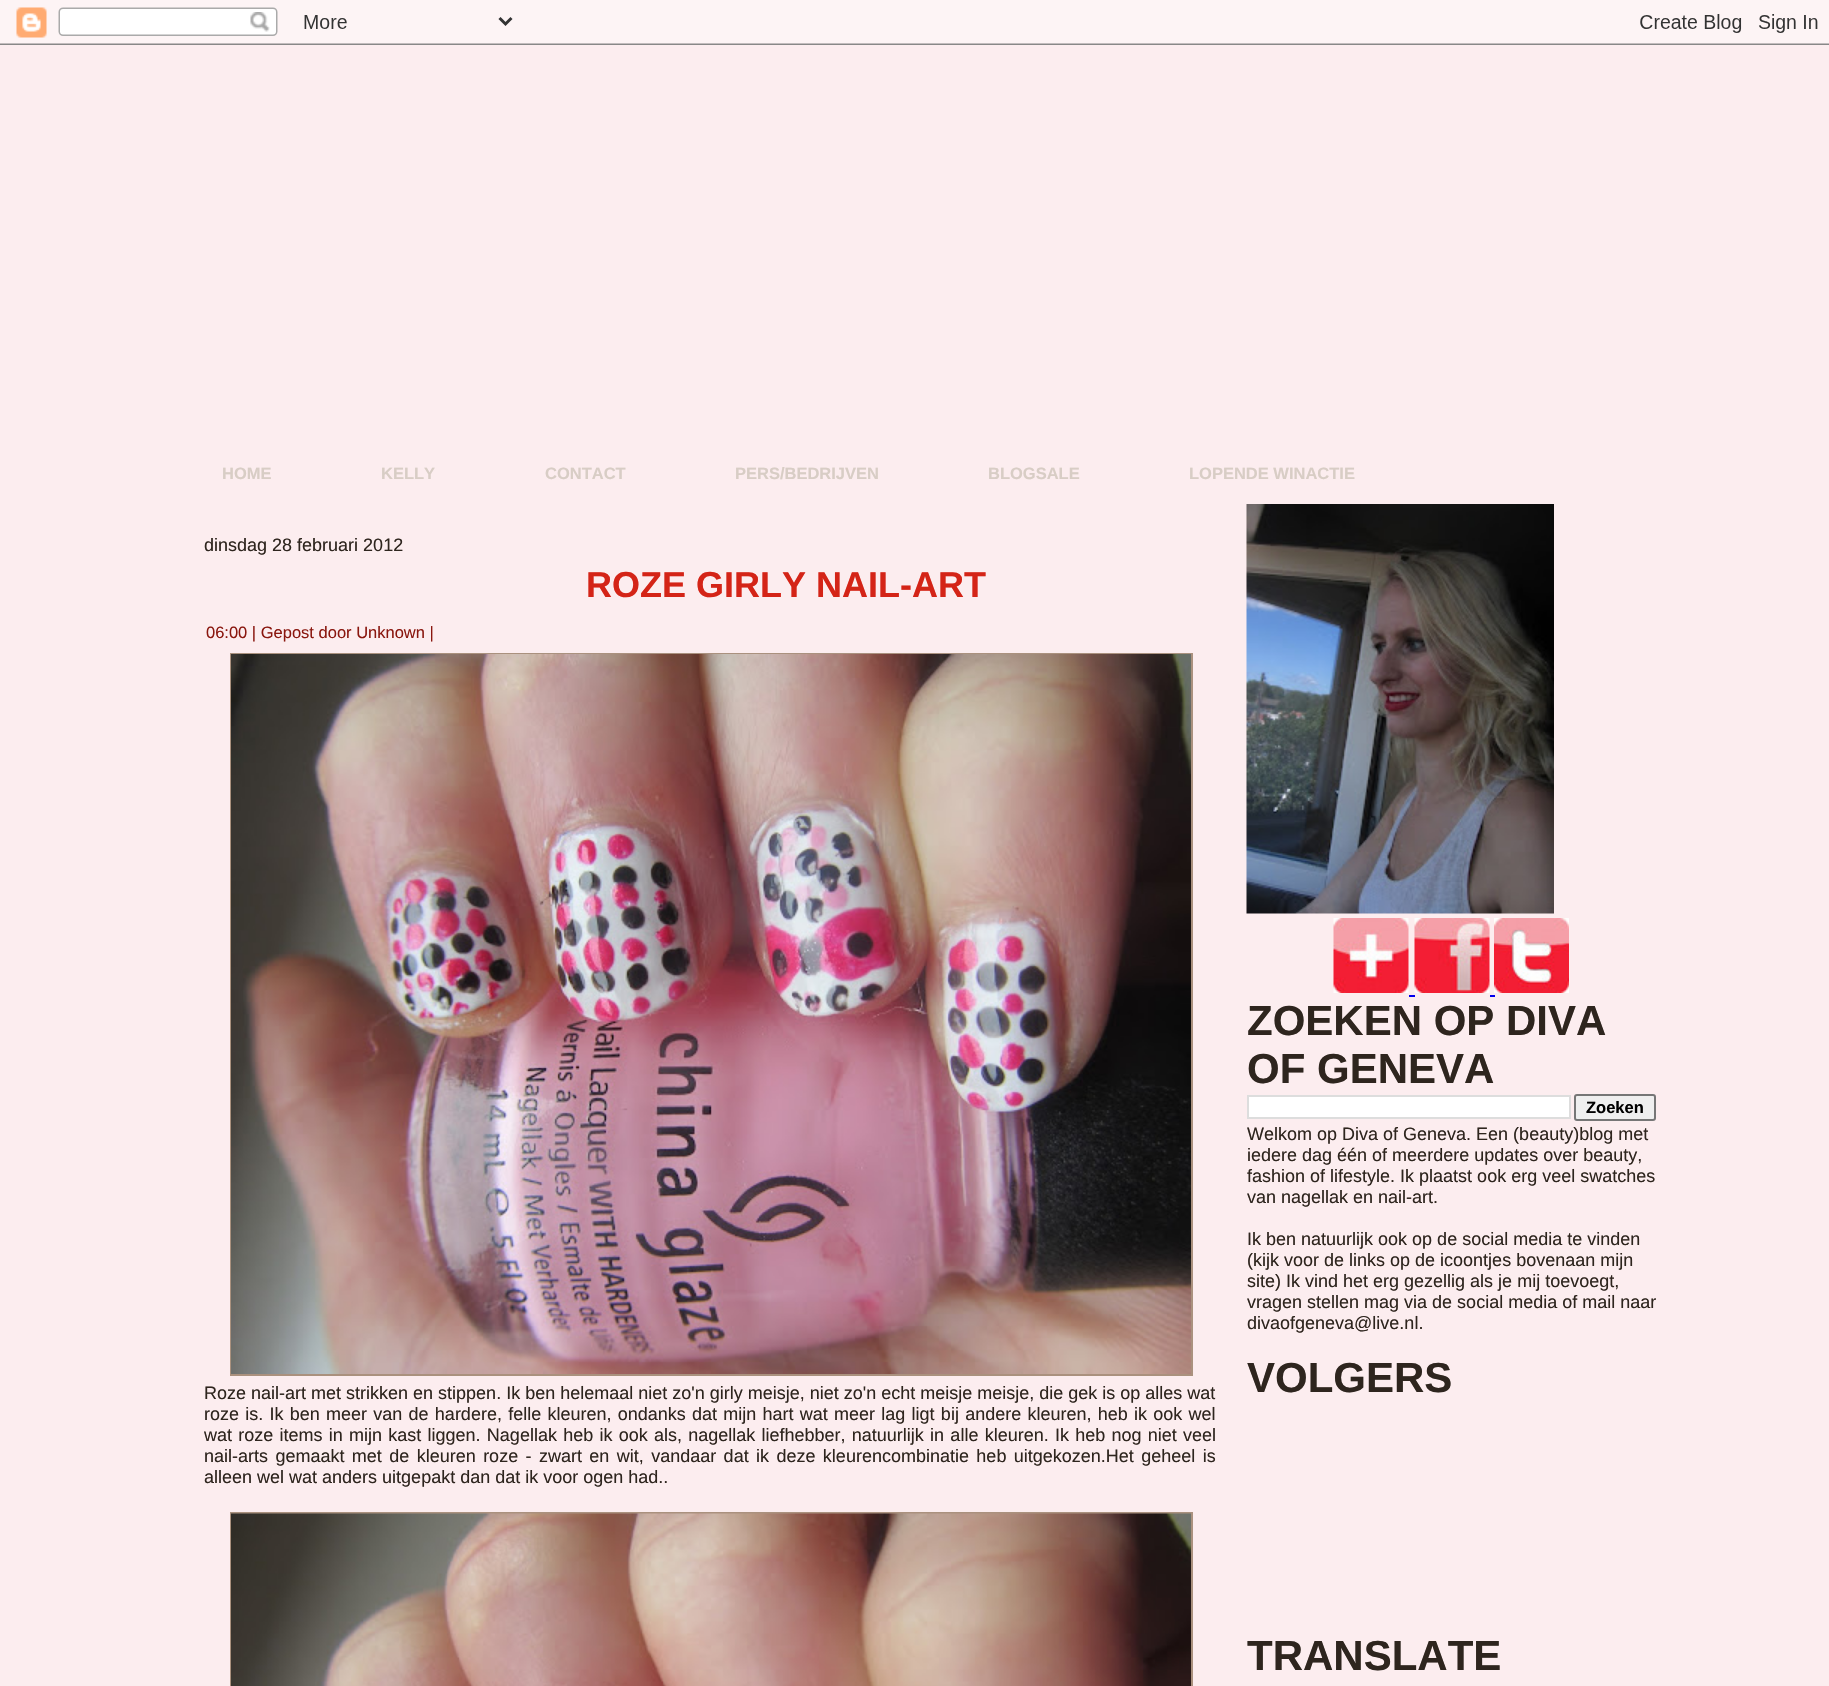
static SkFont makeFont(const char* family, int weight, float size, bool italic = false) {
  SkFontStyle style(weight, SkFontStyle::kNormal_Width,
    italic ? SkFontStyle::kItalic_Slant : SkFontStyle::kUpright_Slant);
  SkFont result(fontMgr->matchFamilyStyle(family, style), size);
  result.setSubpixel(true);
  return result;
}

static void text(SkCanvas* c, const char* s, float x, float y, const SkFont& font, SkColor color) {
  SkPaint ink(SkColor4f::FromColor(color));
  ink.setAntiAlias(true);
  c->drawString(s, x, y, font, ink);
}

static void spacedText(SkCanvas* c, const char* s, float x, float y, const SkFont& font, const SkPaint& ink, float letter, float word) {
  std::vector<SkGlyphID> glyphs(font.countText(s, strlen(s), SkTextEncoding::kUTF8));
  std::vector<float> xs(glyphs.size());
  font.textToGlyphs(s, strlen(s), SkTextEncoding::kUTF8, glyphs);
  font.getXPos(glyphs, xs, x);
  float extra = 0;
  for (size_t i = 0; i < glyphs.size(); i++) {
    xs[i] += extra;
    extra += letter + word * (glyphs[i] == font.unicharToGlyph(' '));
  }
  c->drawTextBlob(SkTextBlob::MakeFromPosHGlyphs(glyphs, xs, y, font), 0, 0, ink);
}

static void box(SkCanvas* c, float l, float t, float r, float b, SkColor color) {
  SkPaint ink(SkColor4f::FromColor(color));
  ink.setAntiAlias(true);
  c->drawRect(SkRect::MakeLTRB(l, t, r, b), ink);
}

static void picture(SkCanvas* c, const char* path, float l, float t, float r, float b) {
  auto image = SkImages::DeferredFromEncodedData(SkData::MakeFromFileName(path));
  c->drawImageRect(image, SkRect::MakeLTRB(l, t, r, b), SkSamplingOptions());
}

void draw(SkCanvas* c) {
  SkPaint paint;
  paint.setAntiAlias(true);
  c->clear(0xfffcedef);
  picture(c, "img_01.png", 0, 0, 1829, 45);
  SkFont face1 = makeFont("Liberation Sans", 700, 16.5f);
  text(c, "HOME", 222, 479, face1, 0xffd8cdc5);
  text(c, "KELLY", 381, 479, face1, 0xffd8cdc5);
  text(c, "CONTACT", 545, 479, face1, 0xffd8cdc5);
  text(c, "PERS/BEDRIJVEN", 735, 479, face1, 0xffd8cdc5);
  text(c, "BLOGSALE", 988, 479, face1, 0xffd8cdc5);
  text(c, "LOPENDE WINACTIE", 1189, 479, face1, 0xffd8cdc5);
  SkFont face2 = makeFont("Liberation Sans", 400, 18);
  text(c, "dinsdag 28 februari 2012", 204, 551, face2, 0xff2e251e);
  SkFont face3 = makeFont("Liberation Sans", 700, 36);
  text(c, "ROZE GIRLY NAIL-ART", 586, 597, face3, 0xffd42417);
  SkFont face4 = makeFont("Liberation Sans", 400, 16.5f);
  text(c, "06:00 | Gepost door Unknown |", 206, 638, face4, 0xff8a170f);
  paint.setStyle(SkPaint::kStroke_Style);
  paint.setStrokeWidth(2);
  paint.setColor(0xffaa917e);
  c->drawRect(SkRect::MakeLTRB(231, 654, 1192, 1375), paint);
  picture(c, "img_02.png", 231, 654, 1191, 1374);
  text(c, "Roze nail-art met strikken en stippen. Ik ben helemaal niet zo'n girly meisje, niet zo'n echt meisje meisje, die gek is op alles wat", 204, 1399, face2, 0xff2e251e);
  paint.setStyle(SkPaint::kFill_Style);
  paint.setColor(0xff2e251e);
  spacedText(c, "roze is. Ik ben meer van de hardere, felle kleuren, ondanks dat mijn hart wat meer lag ligt bij andere kleuren, heb ik ook wel", 204, 1420, face2, paint, 0, 1.25f);
  spacedText(c, "wat roze items in mijn kast liggen. Nagellak heb ik ook als, nagellak liefhebber, natuurlijk in alle kleuren. Ik heb nog niet veel", 204, 1441, face2, paint, 0, 1.25f);
  spacedText(c, "nail-arts gemaakt met de kleuren roze - zwart en wit, vandaar dat ik deze kleurencombinatie heb uitgekozen.Het geheel is", 204, 1462, face2, paint, 0, 2.4f);
  text(c, "alleen wel wat anders uitgepakt dan dat ik voor ogen had..", 204, 1483, face2, 0xff2e251e);
  paint.setStyle(SkPaint::kStroke_Style);
  paint.setColor(0xffaa917e);
  c->drawRect(SkRect::MakeLTRB(231, 1513, 1192, 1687), paint);
  picture(c, "img_03.png", 231, 1513, 1191, 1686);
  picture(c, "img_04.png", 1246, 504, 1554, 914);
  picture(c, "img_05.png", 1333, 918, 1409, 993);
  picture(c, "img_06.png", 1414, 918, 1490, 993);
  picture(c, "img_07.png", 1494, 918, 1569, 993);
  box(c, 1409, 995, 1415, 997, 0xff0000ee);
  box(c, 1490, 995, 1495, 997, 0xff0000ee);
  SkFont face5 = makeFont("Liberation Sans", 700, 42);
  text(c, "ZOEKEN OP DIVA", 1247, 1035, face5, 0xff2e251e);
  text(c, "OF GENEVA", 1247, 1083, face5, 0xff2e251e);
  paint.setStyle(SkPaint::kFill_Style);
  paint.setColor(0xffffffff);
  c->drawRect(SkRect::MakeLTRB(1248, 1096, 1570, 1118), paint);
  paint.setStyle(SkPaint::kStroke_Style);
  paint.setColor(0xffdddddd);
  c->drawRect(SkRect::MakeLTRB(1248, 1096, 1570, 1118), paint);
  paint.setStyle(SkPaint::kFill_Style);
  paint.setColor(0xffefefef);
  c->drawRoundRect(SkRect::MakeLTRB(1575, 1095, 1655, 1120), 2, 2, paint);
  paint.setStyle(SkPaint::kStroke_Style);
  paint.setColor(0xff767676);
  c->drawRoundRect(SkRect::MakeLTRB(1575, 1095, 1655, 1120), 2, 2, paint);
  text(c, "Zoeken", 1586, 1113, face1, 0xff000000);
  text(c, "Welkom op Diva of Geneva. Een (beauty)blog met", 1247, 1140, face2, 0xff2e251e);
  text(c, "iedere dag één of meerdere updates over beauty,", 1247, 1161, face2, 0xff2e251e);
  text(c, "fashion of lifestyle. Ik plaatst ook erg veel swatches", 1247, 1182, face2, 0xff2e251e);
  text(c, "van nagellak en nail-art.", 1247, 1203, face2, 0xff2e251e);
  text(c, "Ik ben natuurlijk ook op de social media te vinden", 1247, 1245, face2, 0xff2e251e);
  text(c, "(kijk voor de links op de icoontjes bovenaan mijn", 1247, 1266, face2, 0xff2e251e);
  text(c, "site) Ik vind het erg gezellig als je mij toevoegt,", 1247, 1287, face2, 0xff2e251e);
  text(c, "vragen stellen mag via de social media of mail naar", 1247, 1308, face2, 0xff2e251e);
  text(c, "divaofgeneva@live.nl.", 1247, 1329, face2, 0xff2e251e);
  text(c, "VOLGERS", 1247, 1392, face5, 0xff2e251e);
  text(c, "TRANSLATE", 1247, 1670, face5, 0xff2e251e);
}
